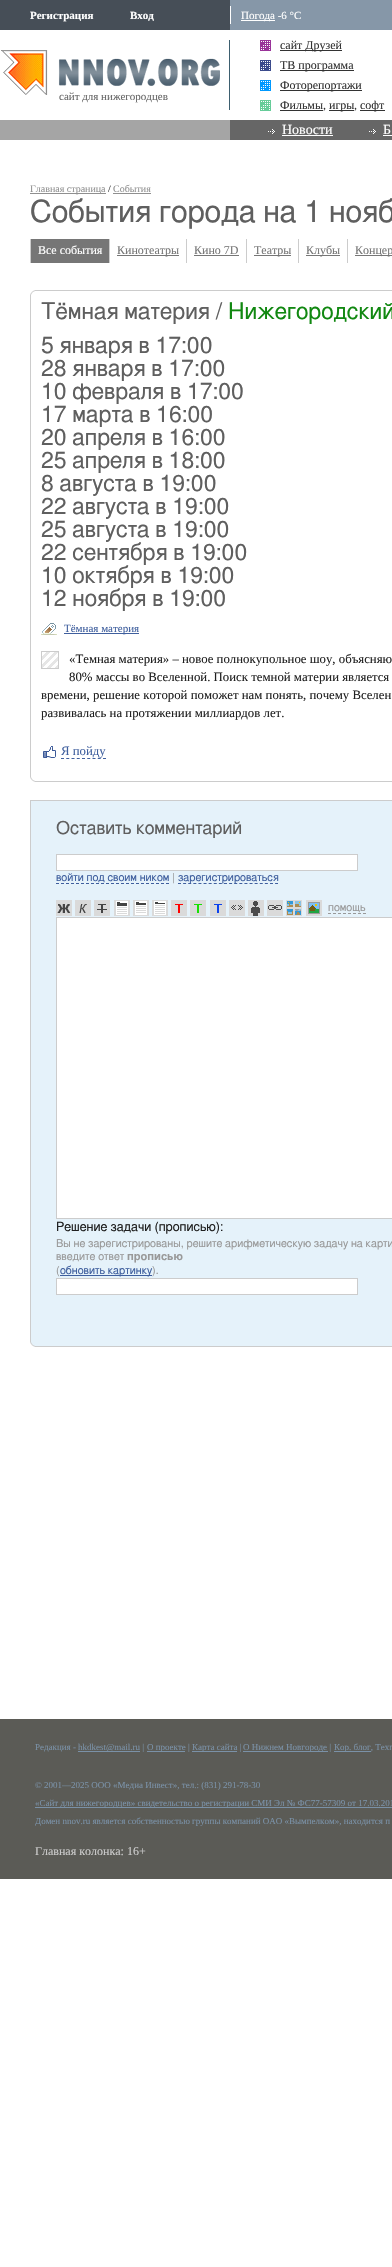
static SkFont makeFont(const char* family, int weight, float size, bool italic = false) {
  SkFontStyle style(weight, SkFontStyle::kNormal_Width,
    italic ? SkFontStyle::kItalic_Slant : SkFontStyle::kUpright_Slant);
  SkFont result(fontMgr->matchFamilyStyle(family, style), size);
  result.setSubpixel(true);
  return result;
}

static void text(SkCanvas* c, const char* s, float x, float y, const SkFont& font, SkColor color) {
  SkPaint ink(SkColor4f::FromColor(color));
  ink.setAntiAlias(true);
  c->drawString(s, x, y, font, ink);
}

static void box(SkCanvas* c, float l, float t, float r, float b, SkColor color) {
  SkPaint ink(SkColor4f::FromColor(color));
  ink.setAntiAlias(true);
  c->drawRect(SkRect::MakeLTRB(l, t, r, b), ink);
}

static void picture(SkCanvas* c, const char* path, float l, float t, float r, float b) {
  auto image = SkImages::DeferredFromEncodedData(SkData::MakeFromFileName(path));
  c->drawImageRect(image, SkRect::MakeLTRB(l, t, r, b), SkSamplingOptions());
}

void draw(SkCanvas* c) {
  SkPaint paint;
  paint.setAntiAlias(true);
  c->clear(0xffffffff);
  box(c, 230, 0, 392, 30, 0xff8697a8);
  box(c, 0, 0, 230, 30, 0xff464e57);
  SkFont face1 = makeFont("Liberation Serif", 700, 11);
  text(c, "Регистрация", 30, 19, face1, 0xffffffff);
  text(c, "Вход", 130, 19, face1, 0xffffffff);
  box(c, 230, 6, 231, 24, 0xffffffff);
  box(c, 241, 20, 275, 21, 0xffffffff);
  SkFont face2 = makeFont("Liberation Serif", 400, 11);
  text(c, "Погода -6 °C", 241, 19, face2, 0xffffffff);
  picture(c, "img_01.png", 1, 50, 220, 95);
  box(c, 229, 40, 230, 110, 0xff3d5e6f);
  text(c, "сайт для нижегородцев", 59, 100, face2, 0xff666666);
  box(c, 260, 40, 271, 51, 0xff993399);
  picture(c, "img_02.png", 261, 41, 270, 50);
  box(c, 280, 50, 342, 51, 0xff333333);
  SkFont face3 = makeFont("Liberation Serif", 400, 12);
  text(c, "сайт Друзей", 280, 49, face3, 0xff333333);
  box(c, 260, 60, 271, 71, 0xff3b4b8c);
  picture(c, "img_03.png", 261, 61, 270, 70);
  box(c, 280, 70, 354, 71, 0xff333333);
  text(c, "ТВ программа", 280, 69, face3, 0xff333333);
  box(c, 260, 80, 271, 91, 0xff0099ff);
  picture(c, "img_04.png", 261, 81, 270, 90);
  box(c, 280, 90, 362, 91, 0xff333333);
  text(c, "Фоторепортажи", 280, 89, face3, 0xff333333);
  box(c, 260, 100, 271, 111, 0xff66cc99);
  picture(c, "img_05.png", 261, 101, 270, 110);
  text(c, "Фильмы", 280, 109, face3, 0xff333333);
  box(c, 280, 110, 323, 111, 0xff333333);
  text(c, ",", 323, 109, face3, 0xff333333);
  box(c, 329, 110, 354, 111, 0xff333333);
  text(c, ",", 354, 109, face3, 0xff333333);
  text(c, "игры", 329, 109, face3, 0xff333333);
  box(c, 360, 110, 385, 111, 0xff333333);
  text(c, "софт", 360, 109, face3, 0xff333333);
  box(c, 230, 120, 392, 140, 0xff666666);
  box(c, 0, 120, 230, 140, 0xffa5a5a5);
  picture(c, "img_06.png", 268, 129, 275, 134);
  SkFont face4 = makeFont("Liberation Serif", 400, 14);
  text(c, "Новости", 282, 134, face4, 0xffffffff);
  box(c, 282, 135, 333, 136, 0xffffffff);
  picture(c, "img_06.png", 369, 129, 376, 134);
  text(c, "Б", 383, 134, face4, 0xffffffff);
  box(c, 383, 135, 392, 136, 0xffffffff);
  box(c, 30, 193, 106, 194, 0xff8f8f8f);
  SkFont face5 = makeFont("Liberation Serif", 400, 10);
  text(c, "Главная страница", 30, 192, face5, 0xff8f8f8f);
  text(c, "/", 108, 192, face5, 0xff202020);
  text(c, "События", 113, 192, face5, 0xff8f8f8f);
  box(c, 113, 193, 151, 194, 0xff8f8f8f);
  SkFont face6 = makeFont("FreeSans", 400, 30.75f);
  text(c, "События города на 1 нояб", 30, 222, face6, 0xff5f5f5f);
  box(c, 31, 239, 109, 263, 0xff767676);
  box(c, 30, 239, 31, 263, 0xffcccccc);
  text(c, "Все события", 38, 254, face3, 0xffffffff);
  box(c, 109, 239, 110, 263, 0xffcccccc);
  box(c, 117, 255, 179, 256, 0xff767676);
  text(c, "Кинотеатры", 117, 254, face3, 0xff767676);
  box(c, 186, 239, 187, 263, 0xffcccccc);
  text(c, "Кино 7D", 194, 254, face3, 0xff767676);
  box(c, 194, 255, 239, 256, 0xff767676);
  box(c, 246, 239, 247, 263, 0xffcccccc);
  box(c, 254, 255, 291, 256, 0xff767676);
  text(c, "Театры", 254, 254, face3, 0xff767676);
  box(c, 298, 239, 299, 263, 0xffcccccc);
  box(c, 306, 255, 340, 256, 0xff767676);
  text(c, "Клубы", 306, 254, face3, 0xff767676);
  box(c, 347, 239, 348, 263, 0xffcccccc);
  box(c, 355, 255, 392, 256, 0xff767676);
  text(c, "Концер", 355, 254, face3, 0xff767676);
  paint.setStyle(SkPaint::kStroke_Style);
  paint.setStrokeWidth(1);
  paint.setColor(0xffcccccc);
  c->drawRect(SkRect::MakeLTRB(30.5f, 290.5f, 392.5f, 781.5f), paint);
  picture(c, "img_07.png", 30, 290, 35, 295);
  SkFont face7 = makeFont("FreeSans", 400, 23);
  text(c, "Тёмная материя /", 41, 319, face7, 0xff5f5f5f);
  text(c, "Нижегородский", 228, 319, face7, 0xff118811);
  text(c, "5 января в 17:00", 41, 353, face7, 0xff5f5f5f);
  text(c, "28 января в 17:00", 41, 376, face7, 0xff5f5f5f);
  text(c, "10 февраля в 17:00", 41, 399, face7, 0xff5f5f5f);
  text(c, "17 марта в 16:00", 41, 422, face7, 0xff5f5f5f);
  text(c, "20 апреля в 16:00", 41, 445, face7, 0xff5f5f5f);
  text(c, "25 апреля в 18:00", 41, 468, face7, 0xff5f5f5f);
  text(c, "8 августа в 19:00", 41, 491, face7, 0xff5f5f5f);
  text(c, "22 августа в 19:00", 41, 514, face7, 0xff5f5f5f);
  text(c, "25 августа в 19:00", 41, 537, face7, 0xff5f5f5f);
  text(c, "22 сентября в 19:00", 41, 560, face7, 0xff5f5f5f);
  text(c, "10 октября в 19:00", 41, 583, face7, 0xff5f5f5f);
  text(c, "12 ноября в 19:00", 41, 606, face7, 0xff5f5f5f);
  picture(c, "img_08.png", 41, 623, 57, 635);
  box(c, 64, 633, 139, 634, 0xff3f5f9e);
  text(c, "Тёмная материя", 64, 632, face2, 0xff3f5f9e);
  picture(c, "img_09.png", 42, 652, 58, 668);
  c->drawRect(SkRect::MakeLTRB(41.5f, 651.5f, 58.5f, 668.5f), paint);
  SkFont face8 = makeFont("Liberation Serif", 400, 12.8f);
  text(c, "«Темная материя» – новое полнокупольное шоу, объясняю", 69, 663, face8, 0xff202020);
  text(c, "80% массы во Вселенной. Поиск темной материи является", 69, 681, face8, 0xff202020);
  text(c, "времени, решение которой поможет нам понять, почему Вселен", 41, 699, face8, 0xff202020);
  text(c, "развивалась на протяжении миллиардов лет.", 41, 717, face8, 0xff202020);
  picture(c, "img_10.png", 43, 746, 56, 758);
  text(c, "Я пойду", 61, 755, face8, 0xff3f5f9e);
  paint.setColor(0xff3f5f9e);
  paint.setPathEffect(SkDashPathEffect::Make({{3, 2.25f}}, 0));
  c->drawPath(SkPathBuilder().moveTo(61, 758.5f).lineTo(106, 758.5f).detach(), paint);
  paint.setPathEffect(nullptr);
  picture(c, "img_11.png", 30, 777, 35, 782);
  paint.setStyle(SkPaint::kFill_Style);
  paint.setColor(0xffe5f2fa);
  c->drawRect(SkRect::MakeLTRB(30.5f, 800.5f, 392.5f, 1346.5f), paint);
  paint.setStyle(SkPaint::kStroke_Style);
  paint.setColor(0xffcccccc);
  c->drawRect(SkRect::MakeLTRB(30.5f, 800.5f, 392.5f, 1346.5f), paint);
  SkFont face9 = makeFont("FreeSans", 400, 18);
  text(c, "Оставить комментарий", 56, 834, face9, 0xff5f5f5f);
  paint.setStyle(SkPaint::kFill_Style);
  paint.setColor(0xffffffff);
  c->drawRect(SkRect::MakeLTRB(56.5f, 854.5f, 357.5f, 870.5f), paint);
  paint.setStyle(SkPaint::kStroke_Style);
  paint.setColor(0xffcccccc);
  c->drawRect(SkRect::MakeLTRB(56.5f, 854.5f, 357.5f, 870.5f), paint);
  SkFont face10 = makeFont("FreeSans", 400, 11);
  text(c, "войти под своим ником", 56, 881, face10, 0xff3f5f9e);
  paint.setColor(0xff3f5f9e);
  paint.setPathEffect(SkDashPathEffect::Make({{3, 2}}, 0));
  c->drawPath(SkPathBuilder().moveTo(56, 883.5f).lineTo(169, 883.5f).detach(), paint);
  paint.setPathEffect(nullptr);
  text(c, "|", 172, 881, face10, 0xff999999);
  paint.setPathEffect(SkDashPathEffect::Make({{3, 2.11f}}, 0));
  c->drawPath(SkPathBuilder().moveTo(178, 883.5f).lineTo(278, 883.5f).detach(), paint);
  paint.setPathEffect(nullptr);
  text(c, "зарегистрироваться", 178, 881, face10, 0xff3f5f9e);
  picture(c, "img_12.png", 56, 900, 72, 916);
  picture(c, "img_13.png", 75, 900, 91, 916);
  picture(c, "img_14.png", 94, 900, 110, 916);
  picture(c, "img_15.png", 114, 900, 130, 916);
  picture(c, "img_16.png", 133, 900, 149, 916);
  picture(c, "img_17.png", 152, 900, 168, 916);
  picture(c, "img_18.png", 171, 900, 187, 916);
  picture(c, "img_19.png", 190, 900, 206, 916);
  picture(c, "img_20.png", 210, 900, 226, 916);
  picture(c, "img_21.png", 229, 900, 245, 916);
  picture(c, "img_22.png", 248, 900, 264, 916);
  picture(c, "img_23.png", 267, 900, 283, 916);
  picture(c, "img_24.png", 286, 900, 302, 916);
  picture(c, "img_25.png", 306, 900, 322, 916);
  text(c, "помощь", 328, 911, face10, 0xff999999);
  paint.setColor(0xff999999);
  paint.setPathEffect(SkDashPathEffect::Make({{3, 2}}, 0));
  c->drawPath(SkPathBuilder().moveTo(328, 913.5f).lineTo(366, 913.5f).detach(), paint);
  paint.setPathEffect(nullptr);
  paint.setStyle(SkPaint::kFill_Style);
  paint.setColor(0xffffffff);
  c->drawRect(SkRect::MakeLTRB(56.5f, 917.5f, 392.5f, 1218.5f), paint);
  paint.setStyle(SkPaint::kStroke_Style);
  paint.setColor(0xffcccccc);
  c->drawRect(SkRect::MakeLTRB(56.5f, 917.5f, 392.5f, 1218.5f), paint);
  SkFont face11 = makeFont("FreeSans", 400, 12.8f);
  text(c, "Решение задачи (прописью):", 56, 1231, face11, 0xff202020);
  text(c, "Вы не зарегистрированы, решите арифметическую задачу на карти", 56, 1247, face10, 0xff999999);
  text(c, "введите ответ", 56, 1260, face10, 0xff999999);
  SkFont face12 = makeFont("FreeSans", 600, 11);
  text(c, "прописью", 127, 1260, face12, 0xff999999);
  text(c, "(", 56, 1274, face10, 0xff999999);
  box(c, 60, 1275, 152, 1276, 0xff3f5f9e);
  text(c, "обновить картинку", 60, 1274, face10, 0xff3f5f9e);
  text(c, ").", 152, 1274, face10, 0xff999999);
  paint.setStyle(SkPaint::kFill_Style);
  paint.setColor(0xffffffff);
  c->drawRect(SkRect::MakeLTRB(56.5f, 1278.5f, 357.5f, 1294.5f), paint);
  paint.setStyle(SkPaint::kStroke_Style);
  paint.setColor(0xffcccccc);
  c->drawRect(SkRect::MakeLTRB(56.5f, 1278.5f, 357.5f, 1294.5f), paint);
  picture(c, "img_26.png", 30, 1342, 35, 1347);
  box(c, 0, 1719, 392, 1879, 0xff5b5b56);
  SkFont face13 = makeFont("Liberation Serif", 400, 9);
  text(c, "Редакция -", 35, 1750, face13, 0xff7a91a7);
  box(c, 78, 1751, 140, 1752, 0xff7a91a7);
  text(c, "hkdkest@mail.ru |", 78, 1750, face13, 0xff7a91a7);
  box(c, 147, 1751, 185, 1752, 0xff7a91a7);
  text(c, "О проекте |", 147, 1750, face13, 0xff7a91a7);
  box(c, 192, 1751, 237, 1752, 0xff7a91a7);
  text(c, "Карта сайта |", 192, 1750, face13, 0xff7a91a7);
  box(c, 243, 1751, 328, 1752, 0xff7a91a7);
  text(c, "О Нижнем Новгороде |", 243, 1750, face13, 0xff7a91a7);
  box(c, 334, 1751, 371, 1752, 0xff7a91a7);
  text(c, "Кор. блог, Техп", 334, 1750, face13, 0xff7a91a7);
  text(c, "© 2001—2025 ООО «Медиа Инвест», тел.: (831) 291-78-30", 35, 1788, face13, 0xff7a91a7);
  box(c, 35, 1807, 392, 1808, 0xff7a91a7);
  text(c, "«Сайт для нижегородцев» свидетельство о регистрации СМИ Эл № ФС77-57309 от 17.03.201", 35, 1806, face13, 0xff7a91a7);
  text(c, "Домен nnov.ru является собственностью группы компаний ОАО «Вымпелком», находится п", 35, 1824, face13, 0xff7a91a7);
  text(c, "Главная колонка: 16+", 35, 1855, face3, 0xffcccccc);
}
